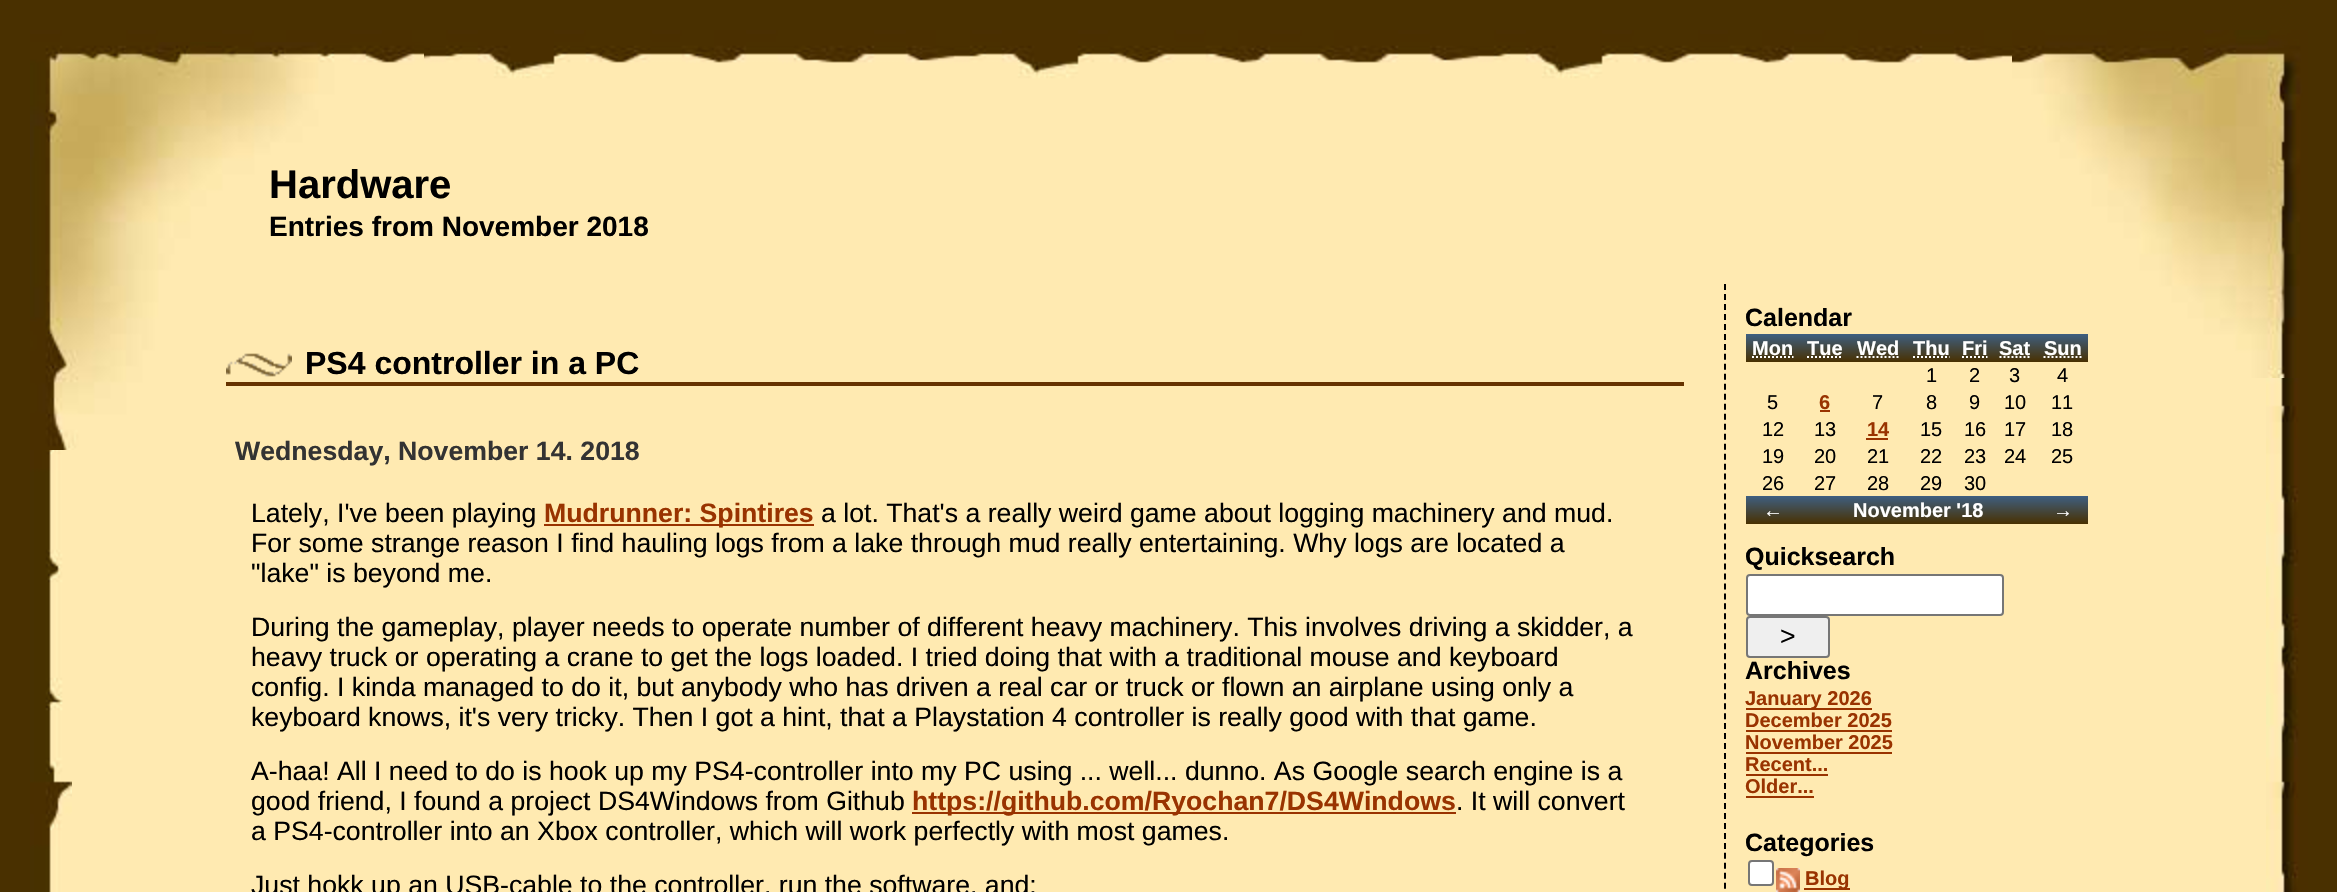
static SkFont makeFont(const char* family, int weight, float size, bool italic = false) {
  SkFontStyle style(weight, SkFontStyle::kNormal_Width,
    italic ? SkFontStyle::kItalic_Slant : SkFontStyle::kUpright_Slant);
  SkFont result(fontMgr->matchFamilyStyle(family, style), size);
  result.setSubpixel(true);
  return result;
}

static void text(SkCanvas* c, const char* s, float x, float y, const SkFont& font, SkColor color) {
  SkPaint ink(SkColor4f::FromColor(color));
  ink.setAntiAlias(true);
  c->drawString(s, x, y, font, ink);
}

static void box(SkCanvas* c, float l, float t, float r, float b, SkColor color) {
  SkPaint ink(SkColor4f::FromColor(color));
  ink.setAntiAlias(true);
  c->drawRect(SkRect::MakeLTRB(l, t, r, b), ink);
}

static void picture(SkCanvas* c, const char* path, float l, float t, float r, float b) {
  auto image = SkImages::DeferredFromEncodedData(SkData::MakeFromFileName(path));
  c->drawImageRect(image, SkRect::MakeLTRB(l, t, r, b), SkSamplingOptions());
}

void draw(SkCanvas* c) {
  SkPaint paint;
  paint.setAntiAlias(true);
  c->clear(0xff493000);
  box(c, 72, 80, 2266, 892, 0xffffeab1);
  picture(c, "img_01.png", 30, 450, 72, 892);
  picture(c, "img_02.png", 2266, 378, 2308, 892);
  picture(c, "img_03.png", 30, 30, 2012, 80);
  picture(c, "img_04.png", 30, 42, 424, 450);
  picture(c, "img_05.png", 2012, 30, 2308, 378);
  SkFont face1 = makeFont("Liberation Sans", 700, 40);
  text(c, "Hardware", 269, 198, face1, 0xff000000);
  SkFont face2 = makeFont("Liberation Sans", 700, 28);
  text(c, "Entries from November 2018", 269, 236, face2, 0xff000000);
  picture(c, "img_06.png", 226, 353, 292, 377);
  box(c, 226, 382, 1684, 386, 0xff663300);
  SkFont face3 = makeFont("Liberation Sans", 700, 32);
  text(c, "PS4 controller in a PC", 305, 374, face3, 0xff000000);
  SkFont face4 = makeFont("Liberation Sans", 700, 26.67f);
  text(c, "Wednesday, November 14. 2018", 235, 460, face4, 0xff333333);
  SkFont face5 = makeFont("Liberation Sans", 400, 26.67f);
  text(c, "Lately, I've been playing", 251, 522, face5, 0xff000000);
  box(c, 544, 524, 814, 526, 0xff993300);
  text(c, "Mudrunner: Spintires", 544, 522, face4, 0xff993300);
  text(c, "a lot. That's a really weird game about logging machinery and mud.", 821, 522, face5, 0xff000000);
  text(c, "For some strange reason I find hauling logs from a lake through mud really entertaining. Why logs are located a", 251, 552, face5, 0xff000000);
  text(c, "\"lake\" is beyond me.", 251, 582, face5, 0xff000000);
  text(c, "During the gameplay, player needs to operate number of different heavy machinery. This involves driving a skidder, a", 251, 636, face5, 0xff000000);
  text(c, "heavy truck or operating a crane to get the logs loaded. I tried doing that with a traditional mouse and keyboard", 251, 666, face5, 0xff000000);
  text(c, "config. I kinda managed to do it, but anybody who has driven a real car or truck or flown an airplane using only a", 251, 696, face5, 0xff000000);
  text(c, "keyboard knows, it's very tricky. Then I got a hint, that a Playstation 4 controller is really good with that game.", 251, 726, face5, 0xff000000);
  text(c, "A-haa! All I need to do is hook up my PS4-controller into my PC using ... well... dunno. As Google search engine is a", 251, 780, face5, 0xff000000);
  text(c, "good friend, I found a project DS4Windows from Github", 251, 810, face5, 0xff000000);
  box(c, 912, 812, 1456, 814, 0xff993300);
  text(c, "https://github.com/Ryochan7/DS4Windows", 912, 810, face4, 0xff993300);
  text(c, ". It will convert", 1456, 810, face5, 0xff000000);
  text(c, "a PS4-controller into an Xbox controller, which will work perfectly with most games.", 251, 840, face5, 0xff000000);
  text(c, "Just hokk up an USB-cable to the controller, run the software, and:", 251, 894, face5, 0xff000000);
  paint.setStyle(SkPaint::kStroke_Style);
  paint.setStrokeWidth(2);
  paint.setColor(0xff000000);
  paint.setPathEffect(SkDashPathEffect::Make({{6, 3.98f}}, 0));
  c->drawPath(SkPathBuilder().moveTo(1725, 284).lineTo(1725, 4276).detach(), paint);
  paint.setPathEffect(nullptr);
  SkFont face6 = makeFont("Liberation Sans", 700, 25);
  text(c, "Calendar", 1745, 326, face6, 0xff000000);
  paint.setStyle(SkPaint::kFill_Style);
  {
    const SkColor colors[] = {0xff3e5f81, 0xff493000};
    const float stops[] = {0, 1};
    const SkPoint ends[] = {{1917, 334}, {1917, 362}};
    paint.setShader(SkGradientShader::MakeLinear(ends, colors, stops, 2, SkTileMode::kClamp));
    paint.setAlpha(255);
  }
  c->drawRect(SkRect::MakeLTRB(1746, 334, 2088, 362), paint);
  SkFont face7 = makeFont("Liberation Sans", 700, 20);
  text(c, "Mon", 1752, 355, face7, 0xffffffff);
  paint.setStyle(SkPaint::kStroke_Style);
  paint.setShader(nullptr);
  paint.setColor(0xffffffff);
  paint.setPathEffect(SkDashPathEffect::Make({{2, 2}}, 0));
  c->drawPath(SkPathBuilder().moveTo(1752, 357).lineTo(1793.5f, 357).detach(), paint);
  paint.setPathEffect(nullptr);
  text(c, "Tue", 1807, 355, face7, 0xffffffff);
  paint.setPathEffect(SkDashPathEffect::Make({{2, 2}}, 0));
  c->drawPath(SkPathBuilder().moveTo(1807, 357).lineTo(1842.5f, 357).detach(), paint);
  paint.setPathEffect(nullptr);
  text(c, "Wed", 1857, 355, face7, 0xffffffff);
  paint.setPathEffect(SkDashPathEffect::Make({{2, 2}}, 0));
  c->drawPath(SkPathBuilder().moveTo(1856.5f, 357).lineTo(1899, 357).detach(), paint);
  paint.setPathEffect(nullptr);
  text(c, "Thu", 1913, 355, face7, 0xffffffff);
  paint.setPathEffect(SkDashPathEffect::Make({{2, 2}}, 0));
  c->drawPath(SkPathBuilder().moveTo(1913, 357).lineTo(1949.5f, 357).detach(), paint);
  paint.setPathEffect(nullptr);
  text(c, "Fri", 1962, 355, face7, 0xffffffff);
  paint.setPathEffect(SkDashPathEffect::Make({{2, 2}}, 0));
  c->drawPath(SkPathBuilder().moveTo(1962, 357).lineTo(1987.5f, 357).detach(), paint);
  paint.setPathEffect(nullptr);
  text(c, "Sat", 1999, 355, face7, 0xffffffff);
  paint.setPathEffect(SkDashPathEffect::Make({{2, 2}}, 0));
  c->drawPath(SkPathBuilder().moveTo(1999.5f, 357).lineTo(2030.5f, 357).detach(), paint);
  paint.setPathEffect(nullptr);
  text(c, "Sun", 2044, 355, face7, 0xffffffff);
  paint.setPathEffect(SkDashPathEffect::Make({{2, 2}}, 0));
  c->drawPath(SkPathBuilder().moveTo(2043.5f, 357).lineTo(2081.5f, 357).detach(), paint);
  paint.setPathEffect(nullptr);
  SkFont face8 = makeFont("Liberation Sans", 400, 20);
  text(c, "1", 1926, 382, face8, 0xff000000);
  text(c, "2", 1969, 382, face8, 0xff000000);
  text(c, "3", 2009, 382, face8, 0xff000000);
  text(c, "4", 2057, 382, face8, 0xff000000);
  text(c, "5", 1767, 409, face8, 0xff000000);
  text(c, "6", 1819, 409, face7, 0xff993300);
  box(c, 1820, 410, 1830, 412, 0xff993300);
  text(c, "7", 1872, 409, face8, 0xff000000);
  text(c, "8", 1926, 409, face8, 0xff000000);
  text(c, "9", 1969, 409, face8, 0xff000000);
  text(c, "10", 2004, 409, face8, 0xff000000);
  text(c, "11", 2051, 409, face8, 0xff000000);
  text(c, "12", 1762, 436, face8, 0xff000000);
  text(c, "13", 1814, 436, face8, 0xff000000);
  text(c, "14", 1867, 436, face7, 0xff993300);
  box(c, 1866, 438, 1888, 440, 0xff993300);
  text(c, "15", 1920, 436, face8, 0xff000000);
  text(c, "16", 1964, 436, face8, 0xff000000);
  text(c, "17", 2004, 436, face8, 0xff000000);
  text(c, "18", 2051, 436, face8, 0xff000000);
  text(c, "19", 1762, 463, face8, 0xff000000);
  text(c, "20", 1814, 463, face8, 0xff000000);
  text(c, "21", 1867, 463, face8, 0xff000000);
  text(c, "22", 1920, 463, face8, 0xff000000);
  text(c, "23", 1964, 463, face8, 0xff000000);
  text(c, "24", 2004, 463, face8, 0xff000000);
  text(c, "25", 2051, 463, face8, 0xff000000);
  text(c, "26", 1762, 490, face8, 0xff000000);
  text(c, "27", 1814, 490, face8, 0xff000000);
  text(c, "28", 1867, 490, face8, 0xff000000);
  text(c, "29", 1920, 490, face8, 0xff000000);
  text(c, "30", 1964, 490, face8, 0xff000000);
  paint.setStyle(SkPaint::kFill_Style);
  {
    const SkColor colors[] = {0xff3e5f81, 0xff493000};
    const float stops[] = {0, 1};
    const SkPoint ends[] = {{1917, 496}, {1917, 524}};
    paint.setShader(SkGradientShader::MakeLinear(ends, colors, stops, 2, SkTileMode::kClamp));
    paint.setAlpha(255);
  }
  c->drawRect(SkRect::MakeLTRB(1746, 496, 2088, 524), paint);
  text(c, "←", 1763, 517, face7, 0xffffffff);
  text(c, "November '18", 1853, 517, face7, 0xffffffff);
  text(c, "→", 2053, 517, face7, 0xffffffff);
  text(c, "Quicksearch", 1745, 565, face6, 0xff000000);
  paint.setShader(nullptr);
  paint.setColor(0xffffffff);
  c->drawRoundRect(SkRect::MakeLTRB(1747, 575, 2003, 615), 3, 3, paint);
  paint.setStyle(SkPaint::kStroke_Style);
  paint.setColor(0xff767676);
  c->drawRoundRect(SkRect::MakeLTRB(1747, 575, 2003, 615), 3, 3, paint);
  paint.setStyle(SkPaint::kFill_Style);
  paint.setColor(0xffefefef);
  c->drawRoundRect(SkRect::MakeLTRB(1747, 617, 1829, 657), 3, 3, paint);
  paint.setStyle(SkPaint::kStroke_Style);
  paint.setColor(0xff767676);
  c->drawRoundRect(SkRect::MakeLTRB(1747, 617, 1829, 657), 3, 3, paint);
  text(c, ">", 1780, 645, face5, 0xff000000);
  text(c, "Archives", 1745, 679, face6, 0xff000000);
  box(c, 1746, 708, 1872, 710, 0xff993300);
  text(c, "January 2026", 1745, 705, face7, 0xff993300);
  text(c, "December 2025", 1745, 727, face7, 0xff993300);
  box(c, 1746, 730, 1892, 732, 0xff993300);
  text(c, "November 2025", 1745, 749, face7, 0xff993300);
  box(c, 1746, 752, 1892, 754, 0xff993300);
  text(c, "Recent...", 1745, 771, face7, 0xff993300);
  box(c, 1746, 774, 1828, 776, 0xff993300);
  text(c, "Older...", 1745, 793, face7, 0xff993300);
  box(c, 1746, 796, 1814, 798, 0xff993300);
  text(c, "Categories", 1745, 851, face6, 0xff000000);
  paint.setStyle(SkPaint::kFill_Style);
  paint.setColor(0xffffffff);
  c->drawRoundRect(SkRect::MakeLTRB(1749, 861, 1773, 885), 3, 3, paint);
  paint.setStyle(SkPaint::kStroke_Style);
  paint.setColor(0xff767676);
  c->drawRoundRect(SkRect::MakeLTRB(1749, 861, 1773, 885), 3, 3, paint);
  picture(c, "img_07.png", 1776, 868, 1800, 892);
  box(c, 1804, 888, 1850, 890, 0xff993300);
  text(c, "Blog", 1805, 885, face7, 0xff993300);
}
